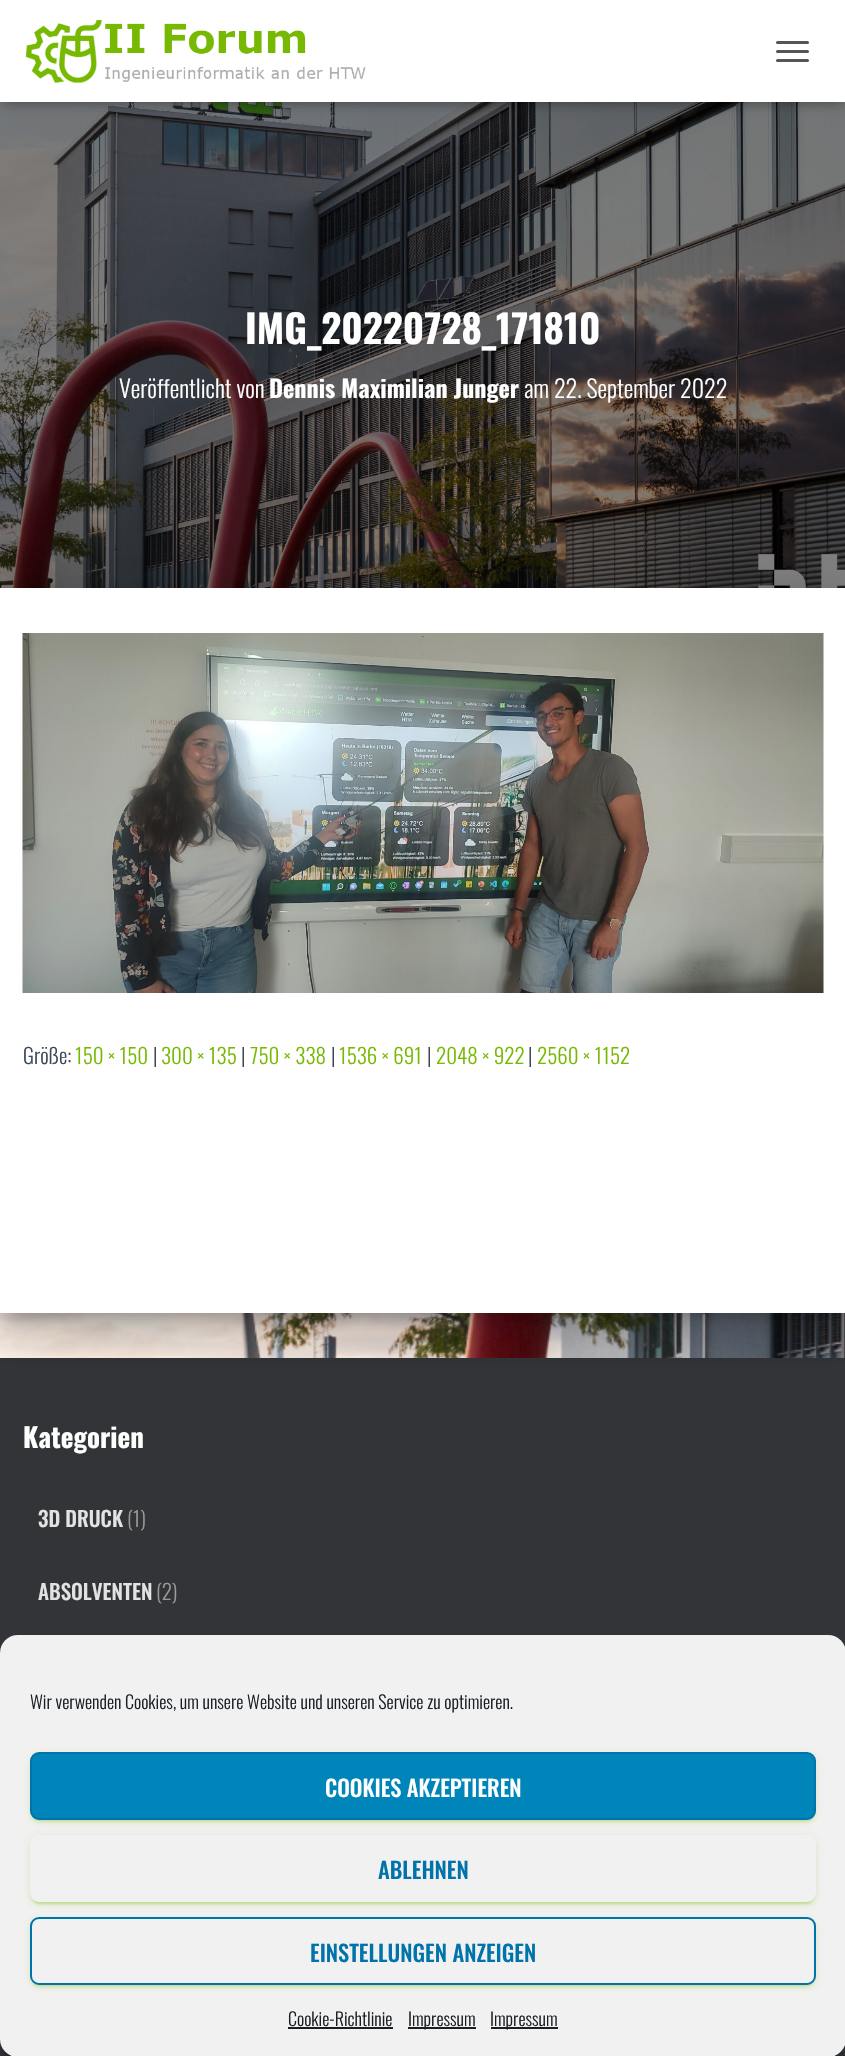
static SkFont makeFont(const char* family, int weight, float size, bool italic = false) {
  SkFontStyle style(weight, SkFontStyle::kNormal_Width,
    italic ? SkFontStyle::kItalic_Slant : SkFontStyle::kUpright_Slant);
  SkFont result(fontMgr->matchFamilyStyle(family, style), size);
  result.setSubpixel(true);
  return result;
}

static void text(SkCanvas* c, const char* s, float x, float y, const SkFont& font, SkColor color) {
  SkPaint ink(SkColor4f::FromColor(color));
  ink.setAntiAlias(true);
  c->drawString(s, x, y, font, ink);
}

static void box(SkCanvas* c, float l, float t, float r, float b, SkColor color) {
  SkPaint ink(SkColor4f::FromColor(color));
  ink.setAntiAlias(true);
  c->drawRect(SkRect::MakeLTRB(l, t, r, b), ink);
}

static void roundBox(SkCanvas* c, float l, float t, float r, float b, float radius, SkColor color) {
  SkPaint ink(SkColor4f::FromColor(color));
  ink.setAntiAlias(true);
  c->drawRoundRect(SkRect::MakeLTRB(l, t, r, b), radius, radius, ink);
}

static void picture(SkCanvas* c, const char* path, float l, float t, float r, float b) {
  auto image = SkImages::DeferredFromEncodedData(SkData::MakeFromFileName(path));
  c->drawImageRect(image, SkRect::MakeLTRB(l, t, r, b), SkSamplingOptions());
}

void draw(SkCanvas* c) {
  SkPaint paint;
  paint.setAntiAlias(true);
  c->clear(0xffffffff);
  picture(c, "img_01.png", 0, 1313, 845, 1358);
  picture(c, "img_03.png", 0, 102, 845, 588);
  paint.setColor(0x1a000000);
  paint.setMaskFilter(SkMaskFilter::MakeBlur(kNormal_SkBlurStyle, 4));
  c->drawRect(SkRect::MakeLTRB(3, 9, 843, 105), paint);
  paint.setMaskFilter(nullptr);
  paint.setColor(0x1f000000);
  paint.setMaskFilter(SkMaskFilter::MakeBlur(kNormal_SkBlurStyle, 7.5f));
  c->drawRect(SkRect::MakeLTRB(0, 2, 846, 104), paint);
  paint.setMaskFilter(nullptr);
  paint.setColor(0x6b000000);
  paint.setMaskFilter(SkMaskFilter::MakeBlur(kNormal_SkBlurStyle, 7.5f));
  c->drawRect(SkRect::MakeLTRB(9, 11, 837, 95), paint);
  paint.setMaskFilter(nullptr);
  box(c, 0, 0, 845, 102, 0xffffffff);
  picture(c, "img_02.png", 25, 19, 366, 83);
  roundBox(c, 776, 41, 809, 44, 1.5f, 0xff555555);
  roundBox(c, 776, 50, 809, 53, 1.5f, 0xff555555);
  roundBox(c, 776, 59, 809, 62, 1.5f, 0xff555555);
  SkFont face1 = makeFont("Oswald", 700, 39);
  text(c, "IMG_20220728_171810", 245, 344, face1, 0xffffffff);
  SkFont face2 = makeFont("Oswald", 300, 24);
  text(c, "Veröffentlicht von", 119, 398, face2, 0xffffffff);
  SkFont face3 = makeFont("Oswald", 700, 24);
  text(c, "Dennis Maximilian Junger", 269, 398, face3, 0xffffffff);
  text(c, "am 22. September 2022", 524, 398, face2, 0xffffffff);
  paint.setColor(0x33000000);
  paint.setMaskFilter(SkMaskFilter::MakeBlur(kNormal_SkBlurStyle, 7.5f));
  c->drawRect(SkRect::MakeLTRB(8, 608, 839, 1317), paint);
  paint.setMaskFilter(nullptr);
  box(c, 0, 1358, 845, 2056, 0xff323437);
  paint.setColor(0x1f000000);
  paint.setMaskFilter(SkMaskFilter::MakeBlur(kNormal_SkBlurStyle, 22.5f));
  c->drawRect(SkRect::MakeLTRB(-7, 590, 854, 1329), paint);
  paint.setMaskFilter(nullptr);
  paint.setColor(0x24000000);
  paint.setMaskFilter(SkMaskFilter::MakeBlur(kNormal_SkBlurStyle, 18));
  c->drawRect(SkRect::MakeLTRB(-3, 609, 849, 1340), paint);
  paint.setMaskFilter(nullptr);
  box(c, 0, 588, 845, 1313, 0xffffffff);
  picture(c, "img_04.png", 22, 633, 824, 993);
  SkFont face4 = makeFont("Oswald", 300, 21);
  text(c, "Größe:", 23, 1064, face4, 0xff3c4858);
  text(c, "150 × 150", 75, 1064, face4, 0xff76b900);
  text(c, "|", 153, 1064, face4, 0xff3c4858);
  text(c, "300 × 135", 161, 1064, face4, 0xff76b900);
  text(c, "|", 241, 1064, face4, 0xff3c4858);
  text(c, "750 × 338", 250, 1064, face4, 0xff76b900);
  text(c, "|", 331, 1064, face4, 0xff3c4858);
  text(c, "1536 × 691", 339, 1064, face4, 0xff76b900);
  text(c, "|", 427, 1064, face4, 0xff3c4858);
  text(c, "2048 × 922", 436, 1064, face4, 0xff76b900);
  text(c, "|", 528, 1064, face4, 0xff3c4858);
  text(c, "2560 × 1152", 537, 1064, face4, 0xff76b900);
  SkFont face5 = makeFont("Oswald", 700, 27);
  text(c, "Kategorien", 23, 1448, face5, 0xffffffff);
  SkFont face6 = makeFont("Oswald", 500, 21);
  text(c, "3D DRUCK", 38, 1527, face6, 0xffe2e3e3);
  text(c, "(1)", 127, 1527, face4, 0xff999999);
  text(c, "ABSOLVENTEN", 38, 1600, face6, 0xffe2e3e3);
  text(c, "(2)", 156, 1600, face4, 0xff999999);
  paint.setColor(0x3b000000);
  paint.setMaskFilter(SkMaskFilter::MakeBlur(kNormal_SkBlurStyle, 4.5f));
  c->drawRoundRect(SkRect::MakeLTRB(0, 1644, 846, 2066), 18, 18, paint);
  paint.setMaskFilter(nullptr);
  roundBox(c, 0, 1635, 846, 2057, 18, 0xfff1f1f1);
  SkFont face7 = makeFont("Oswald", 300, 18);
  text(c, "Wir verwenden Cookies, um unsere Website und unseren Service zu optimieren.", 30, 1709, face7, 0xff191e23);
  paint.setColor(0x1f76b900);
  paint.setMaskFilter(SkMaskFilter::MakeBlur(kNormal_SkBlurStyle, 4));
  c->drawRoundRect(SkRect::MakeLTRB(30, 1754, 816, 1821), 9, 9, paint);
  paint.setMaskFilter(nullptr);
  paint.setColor(0x3376b900);
  paint.setMaskFilter(SkMaskFilter::MakeBlur(kNormal_SkBlurStyle, 1));
  c->drawRoundRect(SkRect::MakeLTRB(33, 1760, 813, 1821), 6, 6, paint);
  paint.setMaskFilter(nullptr);
  paint.setColor(0x2476b900);
  paint.setMaskFilter(SkMaskFilter::MakeBlur(kNormal_SkBlurStyle, 1.5f));
  c->drawRoundRect(SkRect::MakeLTRB(30, 1755, 816, 1823), 9, 9, paint);
  paint.setMaskFilter(nullptr);
  paint.setColor(0xff0085ba);
  c->drawRoundRect(SkRect::MakeLTRB(31, 1753, 815, 1819), 8, 8, paint);
  paint.setStyle(SkPaint::kStroke_Style);
  paint.setStrokeWidth(2);
  paint.setColor(0xff0073aa);
  c->drawRoundRect(SkRect::MakeLTRB(31, 1753, 815, 1819), 8, 8, paint);
  SkFont face8 = makeFont("Oswald", 500, 22.5f);
  text(c, "COOKIES AKZEPTIEREN", 325, 1797, face8, 0xffffffff);
  paint.setStyle(SkPaint::kFill_Style);
  paint.setColor(0x1f76b900);
  paint.setMaskFilter(SkMaskFilter::MakeBlur(kNormal_SkBlurStyle, 4));
  c->drawRoundRect(SkRect::MakeLTRB(30, 1836, 816, 1904), 9, 9, paint);
  paint.setMaskFilter(nullptr);
  paint.setColor(0x3376b900);
  paint.setMaskFilter(SkMaskFilter::MakeBlur(kNormal_SkBlurStyle, 1));
  c->drawRoundRect(SkRect::MakeLTRB(33, 1842, 813, 1904), 6, 6, paint);
  paint.setMaskFilter(nullptr);
  paint.setColor(0x2476b900);
  paint.setMaskFilter(SkMaskFilter::MakeBlur(kNormal_SkBlurStyle, 1.5f));
  c->drawRoundRect(SkRect::MakeLTRB(30, 1838, 816, 1905), 9, 9, paint);
  paint.setMaskFilter(nullptr);
  paint.setColor(0xfff1f1f1);
  c->drawRoundRect(SkRect::MakeLTRB(31, 1836, 815, 1901), 8, 8, paint);
  paint.setStyle(SkPaint::kStroke_Style);
  c->drawRoundRect(SkRect::MakeLTRB(31, 1836, 815, 1901), 8, 8, paint);
  text(c, "ABLEHNEN", 378, 1879, face8, 0xff0073aa);
  paint.setStyle(SkPaint::kFill_Style);
  paint.setColor(0x1f76b900);
  paint.setMaskFilter(SkMaskFilter::MakeBlur(kNormal_SkBlurStyle, 4));
  c->drawRoundRect(SkRect::MakeLTRB(30, 1919, 816, 1986), 9, 9, paint);
  paint.setMaskFilter(nullptr);
  paint.setColor(0x3376b900);
  paint.setMaskFilter(SkMaskFilter::MakeBlur(kNormal_SkBlurStyle, 1));
  c->drawRoundRect(SkRect::MakeLTRB(33, 1925, 813, 1986), 6, 6, paint);
  paint.setMaskFilter(nullptr);
  paint.setColor(0x2476b900);
  paint.setMaskFilter(SkMaskFilter::MakeBlur(kNormal_SkBlurStyle, 1.5f));
  c->drawRoundRect(SkRect::MakeLTRB(30, 1920, 816, 1988), 9, 9, paint);
  paint.setMaskFilter(nullptr);
  paint.setColor(0xfff1f1f1);
  c->drawRoundRect(SkRect::MakeLTRB(31, 1918, 815, 1984), 8, 8, paint);
  paint.setStyle(SkPaint::kStroke_Style);
  paint.setColor(0xff0073aa);
  c->drawRoundRect(SkRect::MakeLTRB(31, 1918, 815, 1984), 8, 8, paint);
  text(c, "EINSTELLUNGEN ANZEIGEN", 310, 1962, face8, 0xff0073aa);
  text(c, "Cookie-Richtlinie", 288, 2026, face7, 0xff191e23);
  box(c, 288, 2027, 393, 2029, 0xff191e23);
  box(c, 408, 2027, 476, 2029, 0xff191e23);
  text(c, "Impressum", 408, 2026, face7, 0xff191e23);
  box(c, 491, 2027, 558, 2029, 0xff191e23);
  text(c, "Impressum", 490, 2026, face7, 0xff191e23);
}
